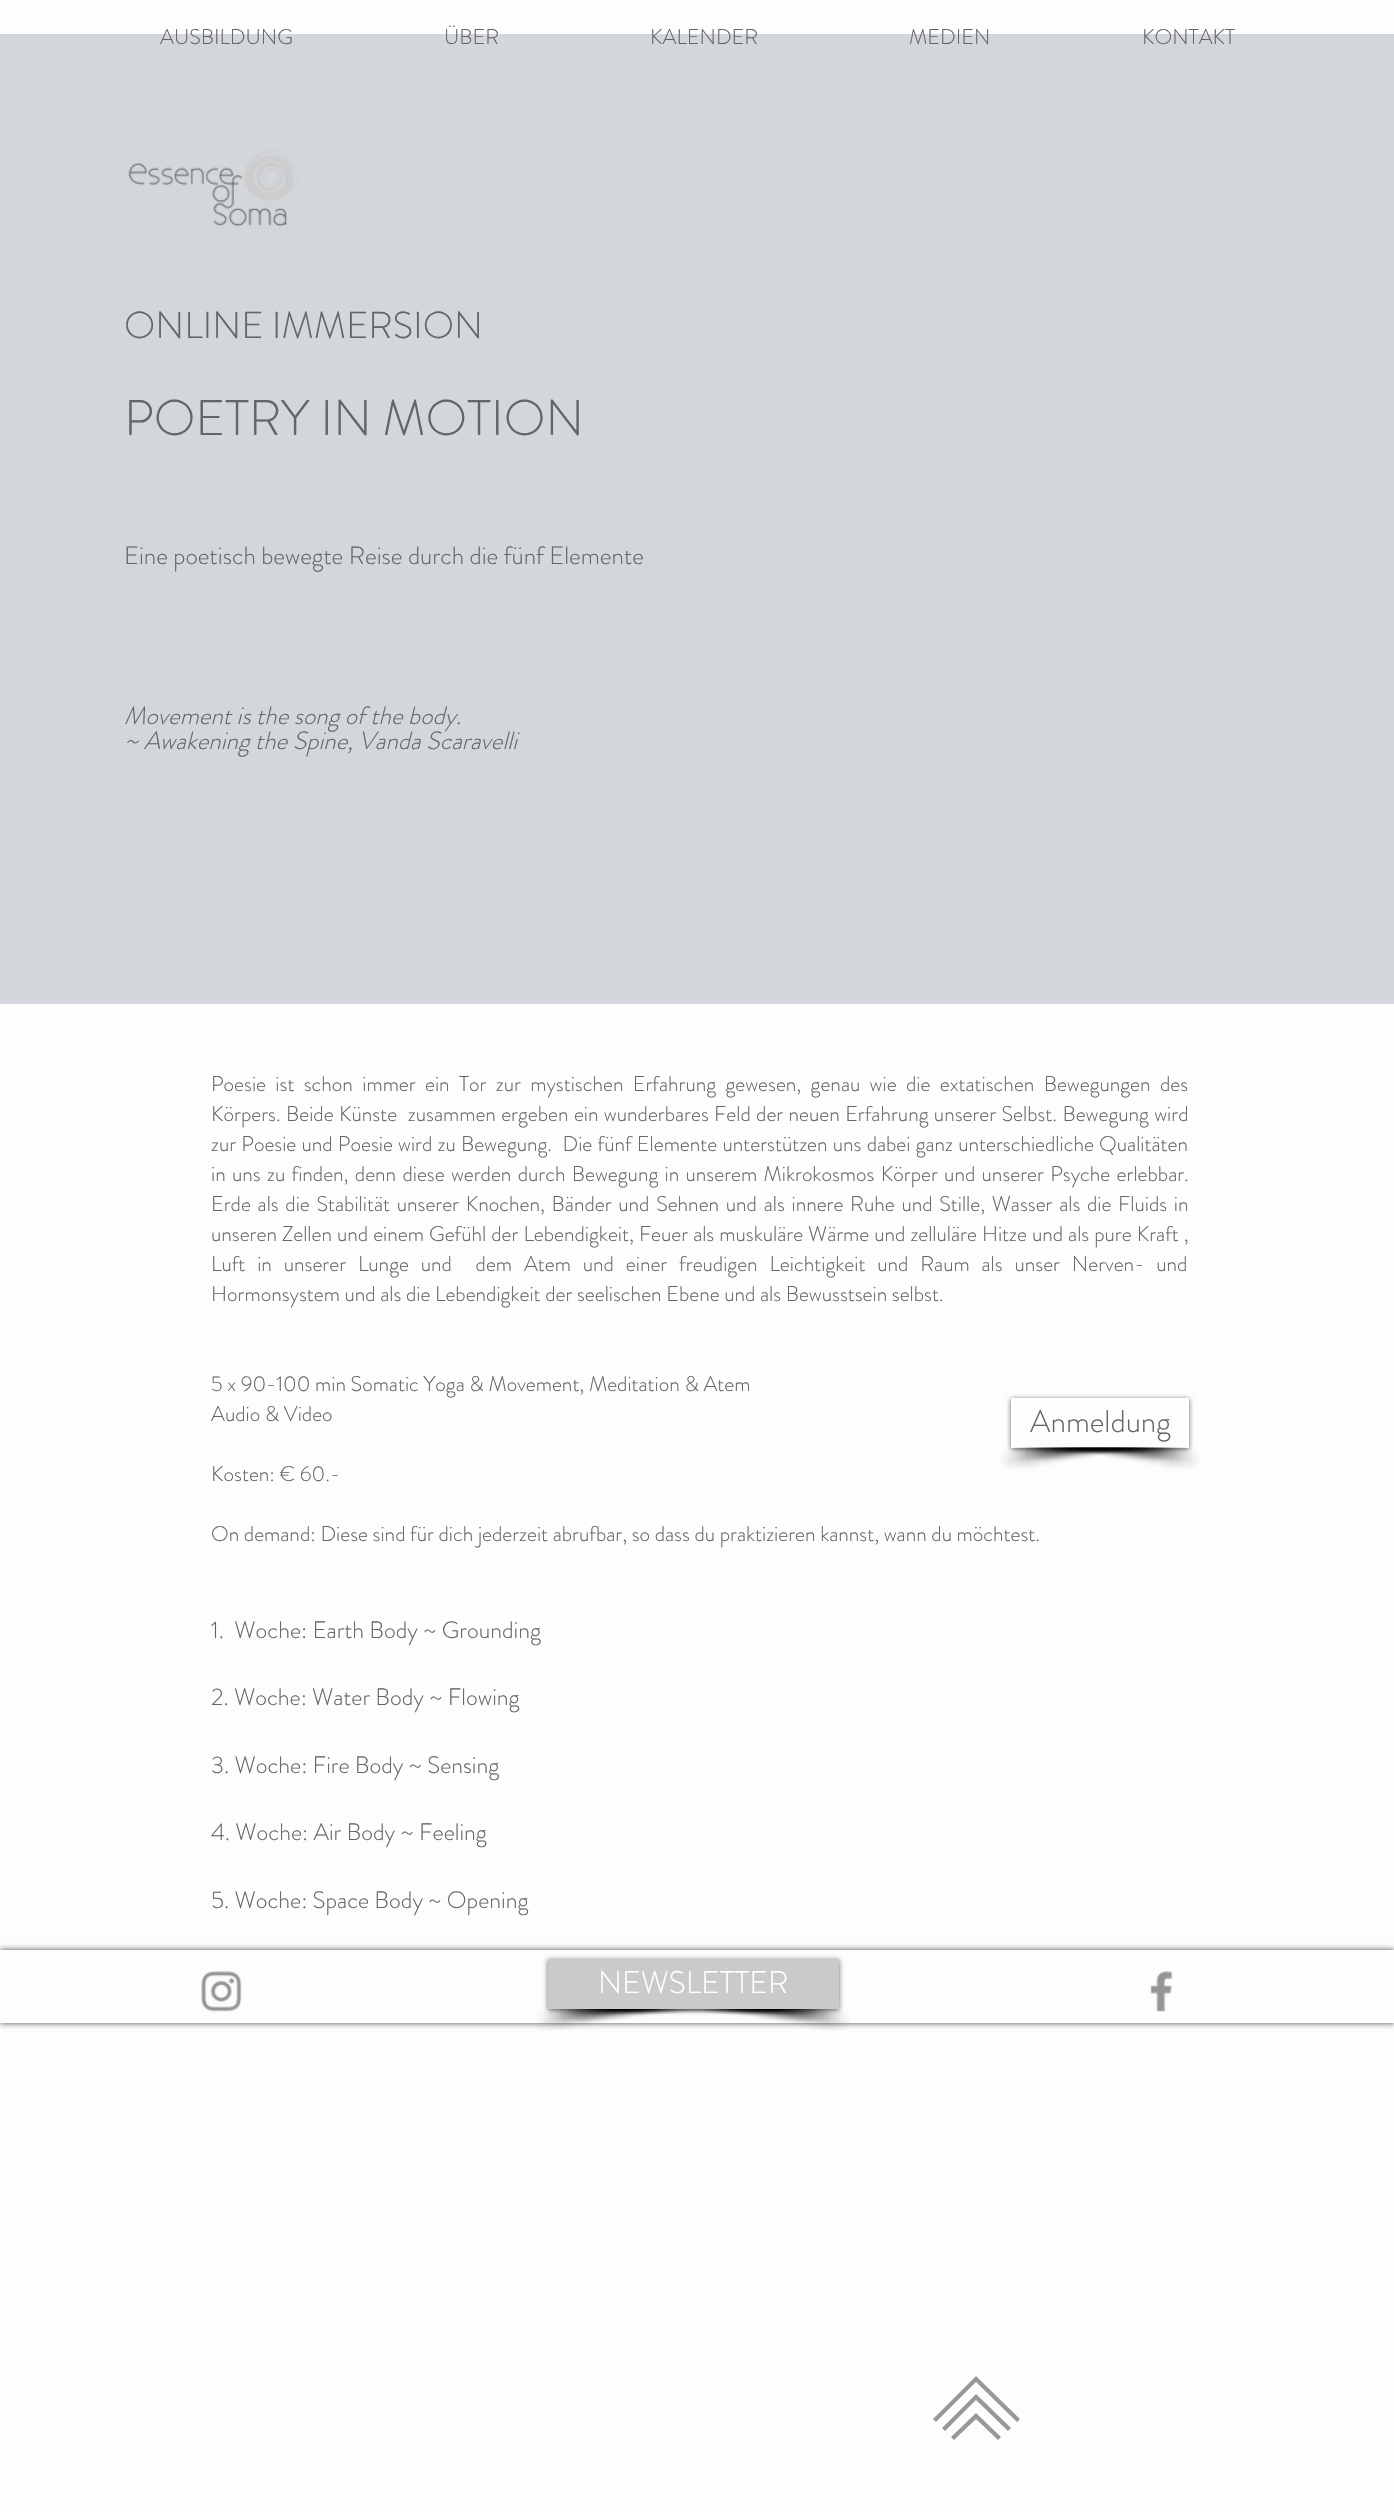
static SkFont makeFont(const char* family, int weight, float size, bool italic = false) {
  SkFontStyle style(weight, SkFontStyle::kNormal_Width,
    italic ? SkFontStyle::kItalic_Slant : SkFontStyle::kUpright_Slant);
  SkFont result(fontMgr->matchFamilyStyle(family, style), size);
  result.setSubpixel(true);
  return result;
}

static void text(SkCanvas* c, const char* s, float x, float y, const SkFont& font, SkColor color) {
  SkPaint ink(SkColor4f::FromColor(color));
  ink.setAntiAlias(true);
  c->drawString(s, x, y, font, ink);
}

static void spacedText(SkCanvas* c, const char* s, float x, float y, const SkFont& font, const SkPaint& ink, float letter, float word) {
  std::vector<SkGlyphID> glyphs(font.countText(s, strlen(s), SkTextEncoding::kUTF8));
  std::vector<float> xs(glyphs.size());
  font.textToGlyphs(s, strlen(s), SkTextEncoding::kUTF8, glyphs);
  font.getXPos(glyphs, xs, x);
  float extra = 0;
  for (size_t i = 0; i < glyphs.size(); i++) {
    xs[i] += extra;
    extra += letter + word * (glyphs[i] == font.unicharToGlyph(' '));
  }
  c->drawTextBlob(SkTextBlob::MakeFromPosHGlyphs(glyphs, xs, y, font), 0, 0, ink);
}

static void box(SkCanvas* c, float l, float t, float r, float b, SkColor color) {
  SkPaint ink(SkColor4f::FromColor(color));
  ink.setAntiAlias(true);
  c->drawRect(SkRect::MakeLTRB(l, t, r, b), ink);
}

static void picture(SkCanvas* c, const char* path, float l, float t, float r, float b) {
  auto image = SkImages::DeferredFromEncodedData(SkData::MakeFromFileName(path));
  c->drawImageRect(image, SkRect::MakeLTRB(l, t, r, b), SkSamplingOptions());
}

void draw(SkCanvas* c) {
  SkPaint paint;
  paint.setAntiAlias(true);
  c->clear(0xfffefdfd);
  box(c, 0, 34, 1394, 1004, 0xffd3d7db);
  SkFont face1 = makeFont("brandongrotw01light", 300, 21.25f);
  text(c, "AUSBILDUNG", 160, 44, face1, 0xff656565);
  text(c, "ÜBER", 444, 44, face1, 0xff656565);
  text(c, "KALENDER", 650, 44, face1, 0xff656565);
  text(c, "MEDIEN", 909, 44, face1, 0xff656565);
  text(c, "KONTAKT", 1142, 44, face1, 0xff656565);
  picture(c, "img_01.png", 128, 150, 298, 227);
  SkFont face2 = makeFont("brandongrotw01light", 300, 37.5f);
  text(c, "ONLINE IMMERSION", 124, 338, face2, 0xff656565);
  SkFont face3 = makeFont("brandongrotw01light", 300, 50);
  text(c, "POETRY IN MOTION", 124, 435, face3, 0xff656565);
  SkFont face4 = makeFont("brandongrotw01light", 300, 25);
  text(c, "Eine poetisch bewegte Reise durch die fünf Elemente", 124, 564, face4, 0xff656565);
  SkFont face5 = makeFont("brandongrotw01light", 300, 25, true);
  text(c, "Movement is the song of the body.", 124, 724, face5, 0xff656565);
  text(c, "~ Awakening the Spine, Vanda Scaravelli", 124, 749, face5, 0xff656565);
  paint.setColor(0xff656565);
  spacedText(c, "Poesie ist schon immer ein Tor zur mystischen Erfahrung gewesen, genau wie die extatischen Bewegungen des", 211, 1091, face1, paint, 0, 4.75f);
  spacedText(c, "Körpers. Beide Künste  zusammen ergeben ein wunderbares Feld der neuen Erfahrung unserer Selbst. Bewegung wird", 211, 1121, face1, paint, 0, 0.75f);
  spacedText(c, "zur Poesie und Poesie wird zu Bewegung.  Die fünf Elemente unterstützen uns dabei ganz unterschiedliche Qualitäten", 211, 1151, face1, paint, 0, 0.6f);
  spacedText(c, "in uns zu finden, denn diese werden durch Bewegung in unserem Mikrokosmos Körper und unserer Psyche erlebbar.", 211, 1181, face1, paint, 0, 1.7f);
  spacedText(c, "Erde als die Stabilität unserer Knochen, Bänder und Sehnen und als innere Ruhe und Stille, Wasser als die Fluids in", 211, 1211, face1, paint, 0, 2.1f);
  spacedText(c, "unseren Zellen und einem Gefühl der Lebendigkeit, Feuer als muskuläre Wärme und zelluläre Hitze und als pure Kraft ,", 211, 1241, face1, paint, 0, 0.4f);
  spacedText(c, "Luft in unserer Lunge und  dem Atem und einer freudigen Leichtigkeit und Raum als unser Nerven- und", 211, 1271, face1, paint, 0, 7.25f);
  text(c, "Hormonsystem und als die Lebendigkeit der seelischen Ebene und als Bewusstsein selbst.", 211, 1301, face1, 0xff656565);
  text(c, "5 x 90-100 min Somatic Yoga & Movement, Meditation & Atem", 211, 1391, face1, 0xff656565);
  text(c, "Audio & Video", 211, 1421, face1, 0xff656565);
  text(c, "Kosten: € 60.-", 211, 1481, face1, 0xff656565);
  text(c, "On demand: Diese sind für dich jederzeit abrufbar, so dass du praktizieren kannst, wann du möchtest.", 211, 1541, face1, 0xff656565);
  SkFont face6 = makeFont("brandongrotw01light", 300, 23.75f);
  text(c, "1.  Woche: Earth Body ~ Grounding", 211, 1638, face6, 0xff656565);
  text(c, "2. Woche: Water Body ~ Flowing", 211, 1705, face6, 0xff656565);
  text(c, "3. Woche: Fire Body ~ Sensing", 211, 1773, face6, 0xff656565);
  text(c, "4. Woche: Air Body ~ Feeling", 211, 1840, face6, 0xff656565);
  text(c, "5. Woche: Space Body ~ Opening", 211, 1908, face6, 0xff656565);
  picture(c, "img_02.png", 1001, 1447, 1186, 1469);
  picture(c, "img_03.png", 1014, 1447, 1199, 1469);
  c->save();
  c->clipPath(SkPathBuilder(SkPathFillType::kEvenOdd).moveTo(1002, 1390).lineTo(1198, 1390).lineTo(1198, 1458).lineTo(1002, 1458).close().moveTo(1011, 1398).lineTo(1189, 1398).lineTo(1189, 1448).lineTo(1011, 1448).close().detach(), true);
  paint.setColor(0x99000000);
  paint.setMaskFilter(SkMaskFilter::MakeBlur(kNormal_SkBlurStyle, 2.5f));
  c->drawRect(SkRect::MakeLTRB(1011, 1399, 1189, 1449), paint);
  paint.setMaskFilter(nullptr);
  c->restore();
  SkFont face7 = makeFont("brandongrotw01light", 300, 31.25f);
  text(c, "Anmeldung", 1030, 1432, face7, 0xff656565);
  paint.setColor(0xb3000000);
  paint.setMaskFilter(SkMaskFilter::MakeBlur(kNormal_SkBlurStyle, 3));
  c->drawRect(SkRect::MakeLTRB(0, 1950, 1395, 2023), paint);
  paint.setMaskFilter(nullptr);
  box(c, 0, 1950, 1394, 2023, 0xfffefdfd);
  picture(c, "img_04.png", 201, 1971, 242, 2012);
  picture(c, "img_05.png", 537, 2009, 723, 2031);
  picture(c, "img_06.png", 670, 2009, 849, 2031);
  paint.setColor(0x99000000);
  paint.setMaskFilter(SkMaskFilter::MakeBlur(kNormal_SkBlurStyle, 2.5f));
  c->drawRect(SkRect::MakeLTRB(548, 1960, 839, 2010), paint);
  paint.setMaskFilter(nullptr);
  box(c, 548, 1959, 839, 2009, 0xffcbcaca);
  text(c, "NEWSLETTER", 598, 1993, face7, 0xffffffff);
  picture(c, "img_07.png", 1150, 1971, 1173, 2012);
  paint.setColor(0xff989897);
  c->drawPath(SkPathBuilder().moveTo(976, 2394).lineTo(942, 2428).lineTo(945, 2431).lineTo(976, 2400).lineTo(1008, 2431).lineTo(1011, 2428).close().detach(), paint);
  c->drawPath(SkPathBuilder().moveTo(976, 2413).lineTo(951, 2437).lineTo(954, 2440).lineTo(976, 2419).lineTo(998, 2440).lineTo(1001, 2437).close().detach(), paint);
  c->drawPath(SkPathBuilder().moveTo(979, 2379).lineTo(976, 2376).lineTo(933, 2419).lineTo(936, 2422).lineTo(976, 2382).lineTo(1017, 2422).lineTo(1020, 2419).close().detach(), paint);
}
